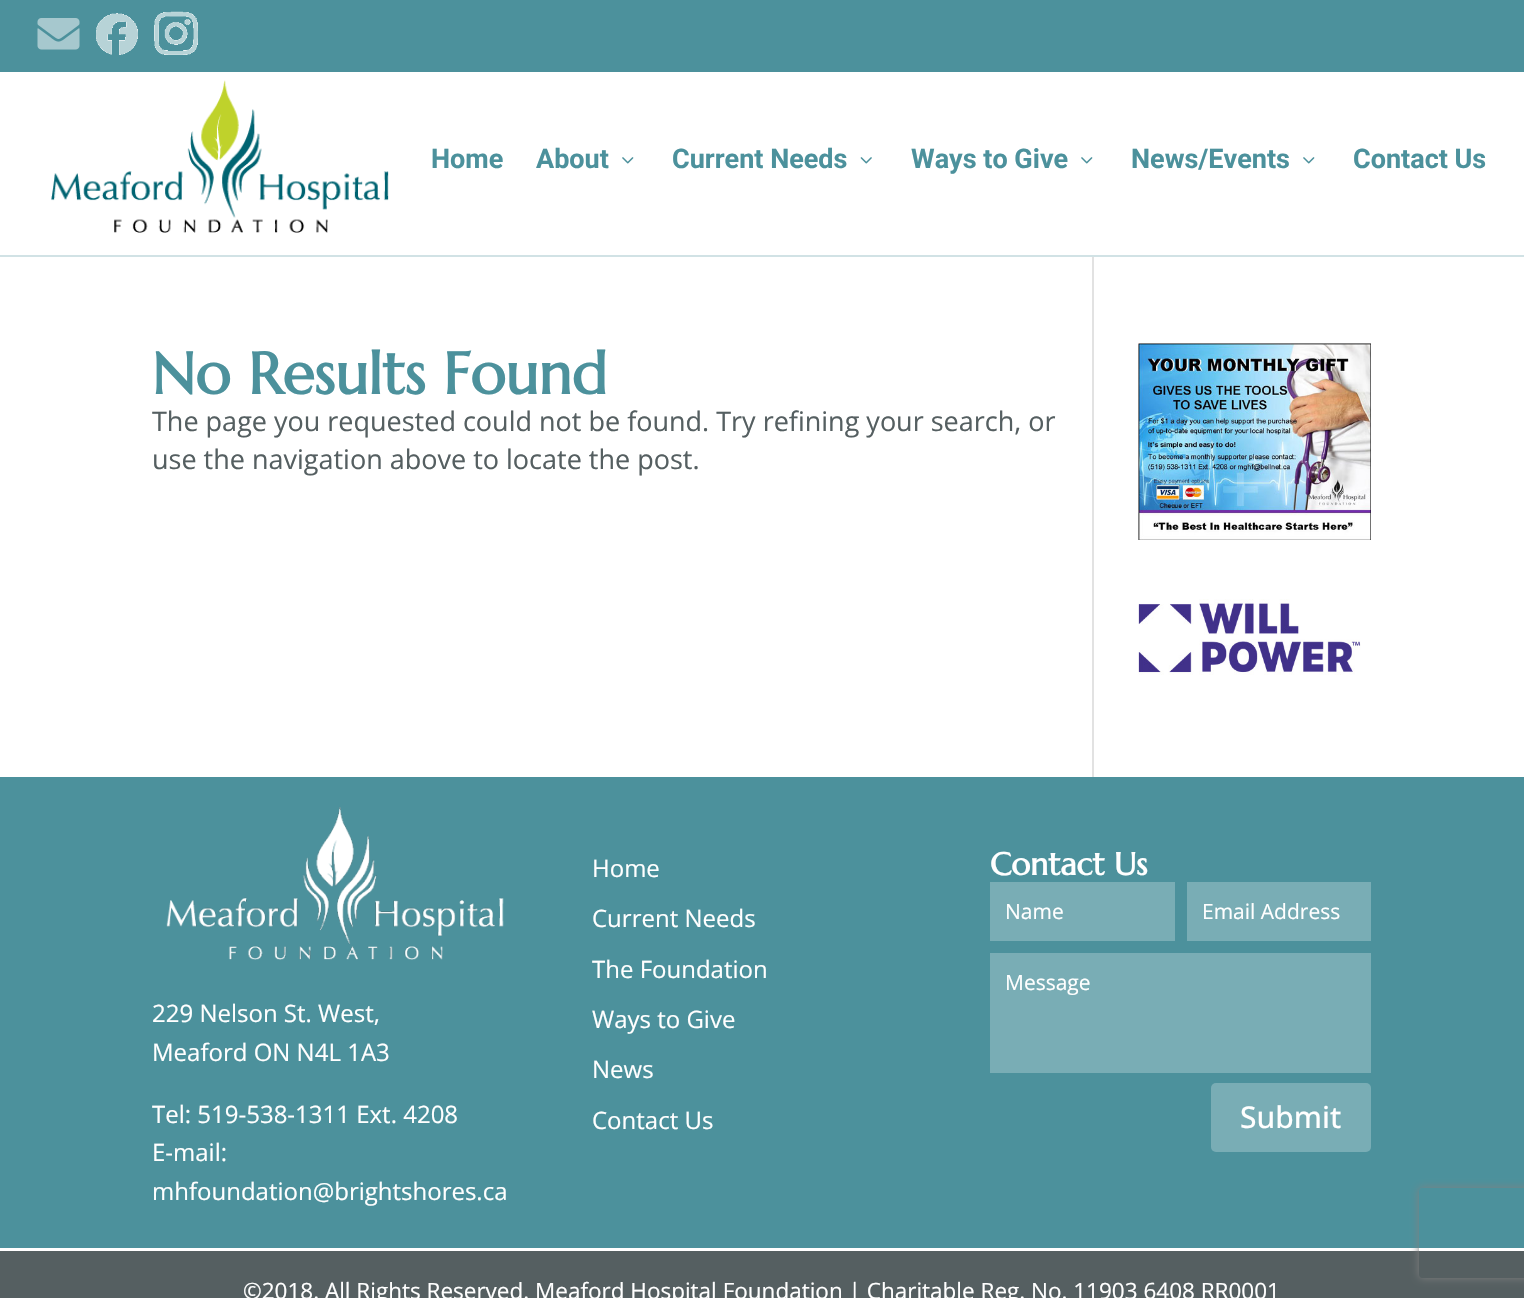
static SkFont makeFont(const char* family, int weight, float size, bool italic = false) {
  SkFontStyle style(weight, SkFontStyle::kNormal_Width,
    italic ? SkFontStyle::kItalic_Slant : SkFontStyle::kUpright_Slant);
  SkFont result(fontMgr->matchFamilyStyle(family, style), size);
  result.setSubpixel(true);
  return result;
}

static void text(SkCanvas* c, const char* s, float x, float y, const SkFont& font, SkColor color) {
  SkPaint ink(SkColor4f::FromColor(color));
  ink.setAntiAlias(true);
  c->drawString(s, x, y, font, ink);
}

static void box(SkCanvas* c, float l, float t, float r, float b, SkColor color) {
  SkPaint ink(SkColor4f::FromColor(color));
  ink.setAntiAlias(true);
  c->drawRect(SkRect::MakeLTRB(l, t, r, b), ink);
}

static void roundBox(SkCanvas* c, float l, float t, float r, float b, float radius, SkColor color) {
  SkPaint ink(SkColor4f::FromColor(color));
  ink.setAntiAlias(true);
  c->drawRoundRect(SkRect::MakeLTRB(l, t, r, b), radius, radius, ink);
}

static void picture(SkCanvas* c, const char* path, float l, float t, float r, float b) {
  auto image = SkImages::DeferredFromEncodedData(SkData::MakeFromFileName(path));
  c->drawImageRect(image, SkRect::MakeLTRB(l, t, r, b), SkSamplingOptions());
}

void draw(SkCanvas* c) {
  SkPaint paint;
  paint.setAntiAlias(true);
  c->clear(0xffffffff);
  box(c, 0, 0, 1524, 72, 0xff4c919c);
  picture(c, "img_01.png", 37, 18, 80, 50);
  picture(c, "img_02.png", 96, 13, 138, 55);
  picture(c, "img_03.png", 154, 11, 198, 55);
  box(c, 0, 255, 1524, 257, 0xffd1e2e5);
  picture(c, "img_04.png", 51, 80, 389, 233);
  SkFont face1 = makeFont("Roboto", 700, 27);
  text(c, "Home", 431, 168, face1, 0xff4c919c);
  text(c, "About", 536, 168, face1, 0xff4c919c);
  picture(c, "img_05.png", 622, 157, 634, 164);
  text(c, "Current Needs", 672, 168, face1, 0xff4c919c);
  picture(c, "img_06.png", 860, 157, 872, 164);
  text(c, "Ways to Give", 911, 168, face1, 0xff4c919c);
  picture(c, "img_05.png", 1081, 157, 1093, 164);
  text(c, "News/Events", 1131, 168, face1, 0xff4c919c);
  picture(c, "img_05.png", 1303, 157, 1315, 164);
  text(c, "Contact Us", 1353, 168, face1, 0xff4c919c);
  SkFont face2 = makeFont("Marcellus", 700, 58.5f);
  text(c, "No Results Found", 152, 394, face2, 0xff4c919c);
  SkFont face3 = makeFont("Open Sans", 400, 27);
  text(c, "The page you requested could not be found. Try refining your search, or", 152, 431, face3, 0xff555f61);
  text(c, "use the navigation above to locate the post.", 152, 469, face3, 0xff555f61);
  picture(c, "img_07.png", 1138, 343, 1371, 540);
  picture(c, "img_08.png", 1138, 599, 1361, 675);
  box(c, 1092, 257, 1094, 777, 0xffe2e2e2);
  box(c, 0, 777, 1524, 1248, 0xff4c919c);
  picture(c, "img_09.png", 166, 807, 504, 960);
  SkFont face4 = makeFont("Open Sans", 400, 24);
  text(c, "229 Nelson St. West,", 152, 1022, face4, 0xffffffff);
  text(c, "Meaford ON N4L 1A3", 152, 1061, face4, 0xffffffff);
  text(c, "Tel: 519-538-1311 Ext. 4208", 152, 1123, face4, 0xffffffff);
  text(c, "E-mail:", 152, 1161, face4, 0xffffffff);
  text(c, "mhfoundation@brightshores.ca", 152, 1200, face4, 0xffffffff);
  text(c, "Home", 592, 877, face4, 0xffffffff);
  text(c, "Current Needs", 592, 927, face4, 0xffffffff);
  text(c, "The Foundation", 592, 978, face4, 0xffffffff);
  text(c, "Ways to Give", 592, 1028, face4, 0xffffffff);
  text(c, "News", 592, 1078, face4, 0xffffffff);
  text(c, "Contact Us", 592, 1129, face4, 0xffffffff);
  SkFont face5 = makeFont("Marcellus", 700, 31.5f);
  text(c, "Contact Us", 990, 875, face5, 0xffffffff);
  box(c, 990, 882, 1175, 941, 0xff79adb5);
  SkFont face6 = makeFont("Open Sans", 400, 21);
  text(c, "Name", 1005, 919, face6, 0xffffffff);
  box(c, 1187, 882, 1371, 941, 0xff79adb5);
  text(c, "Email Address", 1202, 919, face6, 0xffffffff);
  box(c, 990, 953, 1371, 1073, 0xff79adb5);
  text(c, "Message", 1005, 990, face6, 0xffffffff);
  roundBox(c, 1211, 1083, 1371, 1152, 5, 0xff79adb5);
  SkFont face7 = makeFont("Open Sans", 500, 30);
  text(c, "Submit", 1240, 1128, face7, 0xffffffff);
  box(c, 0, 1251, 1524, 1298, 0xff555f61);
  SkFont face8 = makeFont("Open Sans", 400, 22.5f);
  text(c, "©2018. All Rights Reserved. Meaford Hospital Foundation | Charitable Reg. No. 11903 6408 RR0001", 243, 1299, face8, 0xffffffff);
  c->save();
  c->clipPath(SkPathBuilder(SkPathFillType::kEvenOdd).moveTo(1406, 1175).lineTo(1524, 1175).lineTo(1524, 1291).lineTo(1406, 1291).close().moveTo(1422, 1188).lineTo(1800, 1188).cubicTo(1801.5f, 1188, 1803, 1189.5f, 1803, 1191).lineTo(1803, 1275).cubicTo(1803, 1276.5f, 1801.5f, 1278, 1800, 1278).lineTo(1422, 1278).cubicTo(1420.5f, 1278, 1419, 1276.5f, 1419, 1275).lineTo(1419, 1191).cubicTo(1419, 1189.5f, 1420.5f, 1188, 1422, 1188).close().detach(), true);
  paint.setColor(0xff808080);
  paint.setMaskFilter(SkMaskFilter::MakeBlur(kNormal_SkBlurStyle, 4));
  c->drawRoundRect(SkRect::MakeLTRB(1419, 1188, 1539, 1278), 3, 3, paint);
  paint.setMaskFilter(nullptr);
  c->restore();
}
